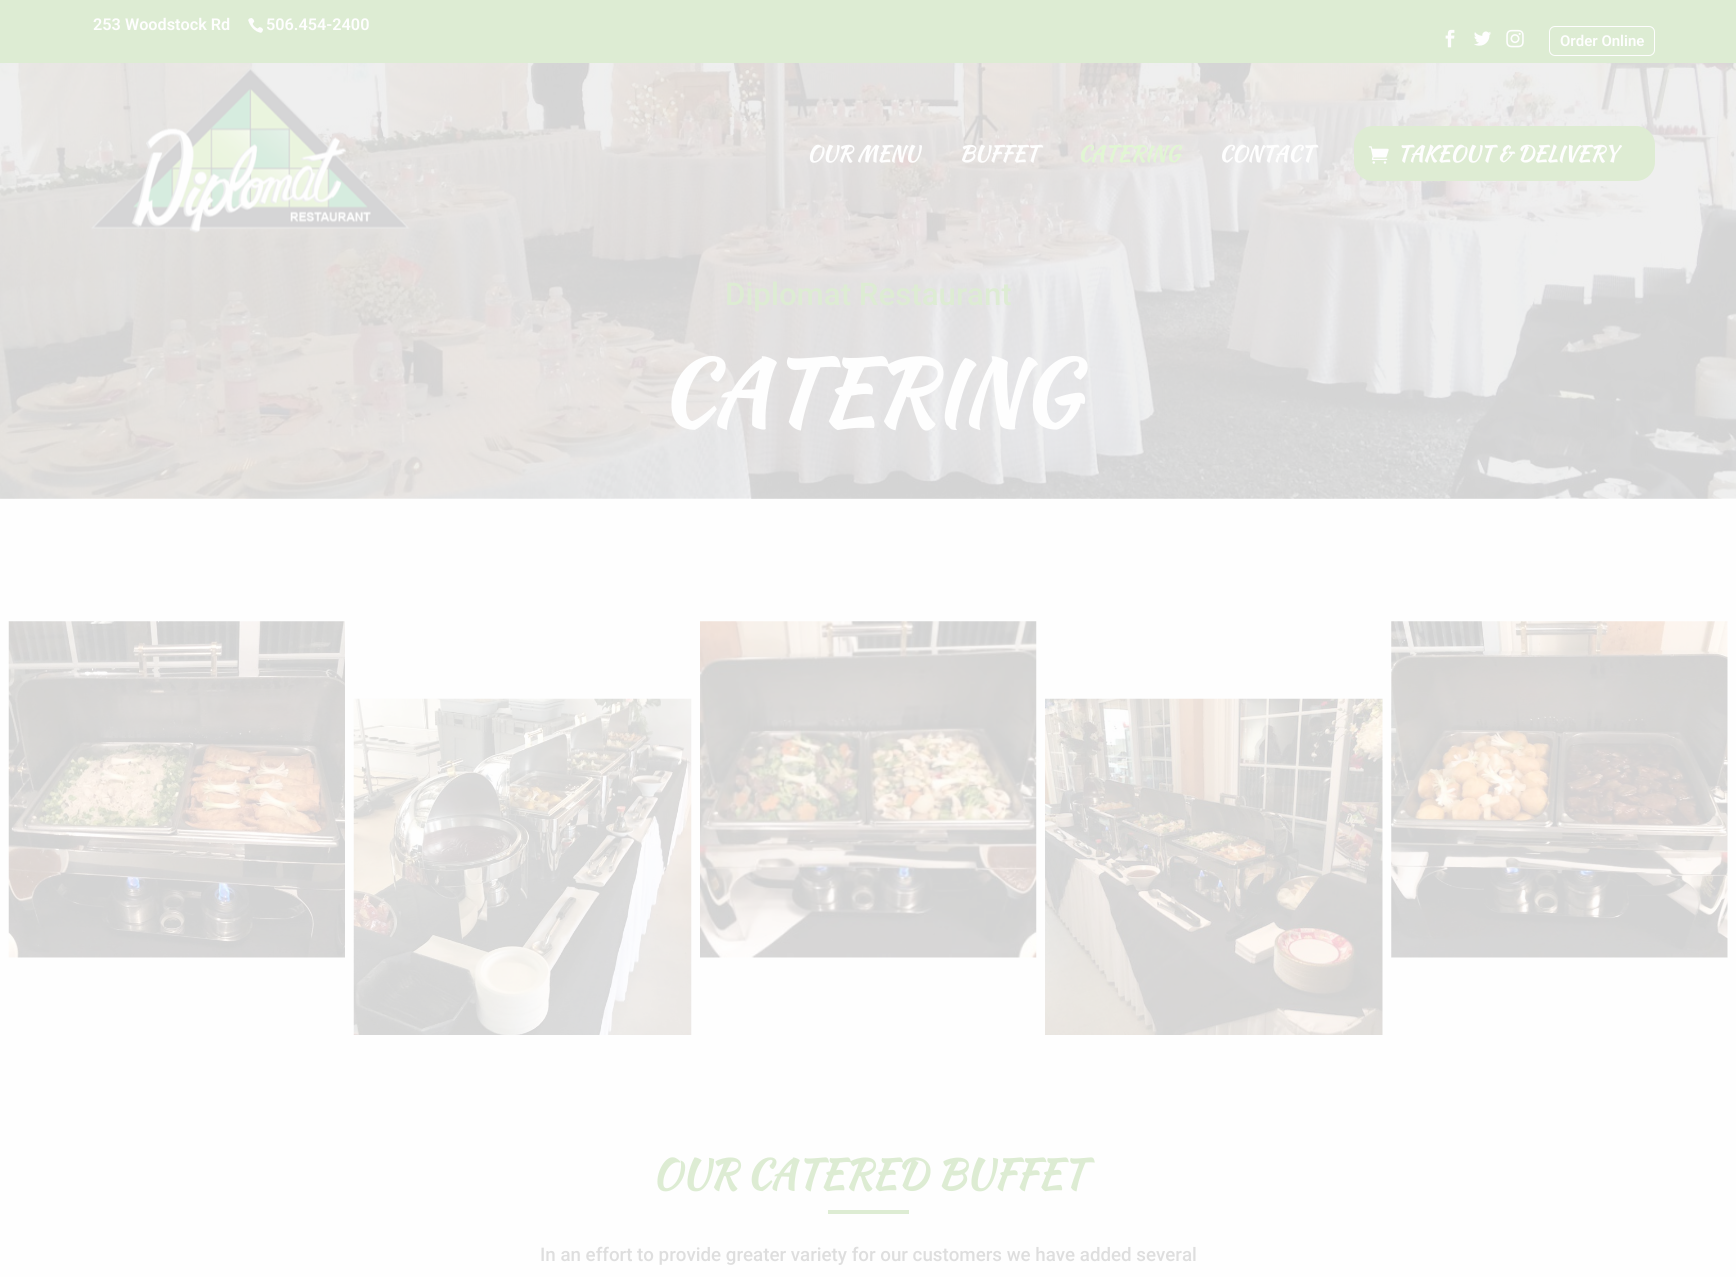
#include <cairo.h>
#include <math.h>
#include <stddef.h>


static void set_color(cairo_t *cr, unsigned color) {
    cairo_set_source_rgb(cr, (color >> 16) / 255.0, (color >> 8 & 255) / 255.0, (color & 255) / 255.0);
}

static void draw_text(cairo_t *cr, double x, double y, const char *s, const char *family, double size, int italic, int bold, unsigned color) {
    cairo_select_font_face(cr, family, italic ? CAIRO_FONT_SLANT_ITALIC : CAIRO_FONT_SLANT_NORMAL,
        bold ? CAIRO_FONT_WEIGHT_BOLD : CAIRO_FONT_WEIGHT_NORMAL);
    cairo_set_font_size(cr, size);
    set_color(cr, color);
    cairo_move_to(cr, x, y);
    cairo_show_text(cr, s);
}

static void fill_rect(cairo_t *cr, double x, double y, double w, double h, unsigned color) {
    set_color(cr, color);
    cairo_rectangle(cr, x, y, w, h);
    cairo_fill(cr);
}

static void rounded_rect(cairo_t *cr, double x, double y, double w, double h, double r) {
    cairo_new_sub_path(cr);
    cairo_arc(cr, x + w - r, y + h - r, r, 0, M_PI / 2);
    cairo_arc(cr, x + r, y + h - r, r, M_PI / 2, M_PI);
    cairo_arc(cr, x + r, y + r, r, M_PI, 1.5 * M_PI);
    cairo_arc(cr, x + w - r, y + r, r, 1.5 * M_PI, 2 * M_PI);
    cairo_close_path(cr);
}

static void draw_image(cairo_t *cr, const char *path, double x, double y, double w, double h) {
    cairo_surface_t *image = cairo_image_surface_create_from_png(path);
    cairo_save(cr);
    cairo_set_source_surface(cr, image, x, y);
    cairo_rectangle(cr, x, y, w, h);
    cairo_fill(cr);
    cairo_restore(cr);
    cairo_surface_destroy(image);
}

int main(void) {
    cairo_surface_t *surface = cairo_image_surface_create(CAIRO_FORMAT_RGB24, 1736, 1277);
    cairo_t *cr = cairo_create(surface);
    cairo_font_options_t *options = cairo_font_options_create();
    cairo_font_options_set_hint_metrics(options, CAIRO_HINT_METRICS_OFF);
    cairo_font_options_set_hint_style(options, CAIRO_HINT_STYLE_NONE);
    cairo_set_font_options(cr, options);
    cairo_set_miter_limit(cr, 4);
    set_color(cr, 0xFEFEFE);
    cairo_paint(cr);
    fill_rect(cr, 0, 0, 1736, 63, 0xDDECD3);
    draw_text(cr, 93, 30, "253 Woodstock Rd", "Roboto SemiBold", 16.25, 0, 0, 0xFEFEFE);
    draw_image(cr, "assets/img1.png", 248, 18, 16, 15);
    draw_text(cr, 266, 30, "506.454-2400", "Roboto SemiBold", 16.25, 0, 0, 0xFEFEFE);
    draw_image(cr, "assets/img2.png", 1445, 29, 10, 19);
    draw_image(cr, "assets/img3.png", 1474, 31, 18, 15);
    draw_image(cr, "assets/img4.png", 1506, 29, 18, 19);
    rounded_rect(cr, 1549.5, 26.5, 105, 29, 5.5);
    cairo_set_line_width(cr, 1);
    cairo_stroke(cr);
    draw_text(cr, 1560, 46, "Order Online", "Roboto SemiBold", 15, 0, 0, 0xFEFEFE);
    draw_image(cr, "assets/img7.png", 0, 63, 1736, 436);
    draw_image(cr, "assets/img5.png", 91, 67, 319, 166);
    draw_text(cr, 807, 161, "OUR MENU", "Kaushan Script", 21.25, 0, 1, 0xFEFEFE);
    draw_text(cr, 959, 161, "BUFFET", "Kaushan Script", 21.25, 0, 1, 0xFEFEFE);
    draw_text(cr, 1078, 161, "CATERING", "Kaushan Script", 21.25, 0, 1, 0xE1F6D3);
    draw_text(cr, 1219, 161, "CONTACT", "Kaushan Script", 21.25, 0, 1, 0xFEFEFE);
    set_color(cr, 0xDEECD3);
    rounded_rect(cr, 1354, 126, 301, 55, 19);
    cairo_fill(cr);
    draw_image(cr, "assets/img6.png", 1368, 146, 21, 18);
    draw_text(cr, 1397, 161, "TAKEOUT & DELIVERY", "Kaushan Script", 21.25, 0, 1, 0xFEFEFE);
    draw_text(cr, 725, 305, "Diplomat Restaurant", "Roboto Medium", 31.25, 0, 0, 0xDDECD3);
    draw_text(cr, 659, 423, "CATERING", "Kaushan Script", 87.5, 0, 1, 0xFEFEFE);
    draw_image(cr, "assets/img8.png", 8, 621, 337, 337);
    draw_image(cr, "assets/img9.png", 353, 698, 339, 337);
    draw_image(cr, "assets/img10.png", 700, 621, 337, 337);
    draw_image(cr, "assets/img11.png", 1045, 698, 338, 337);
    draw_image(cr, "assets/img12.png", 1391, 621, 337, 337);
    draw_text(cr, 652, 1188, "OUR CATERED BUFFET", "Kaushan Script", 40, 0, 1, 0xDDECD3);
    fill_rect(cr, 828, 1210, 81, 4, 0xDDECD3);
    draw_text(cr, 540, 1261, "In an effort to provide greater variety for our customers we have added several", "Roboto Medium", 18.75, 0, 0, 0xDEDEDE);
    cairo_surface_write_to_png(surface, "output.png");
    cairo_font_options_destroy(options);
    cairo_destroy(cr);
    cairo_surface_destroy(surface);
    return 0;
}
